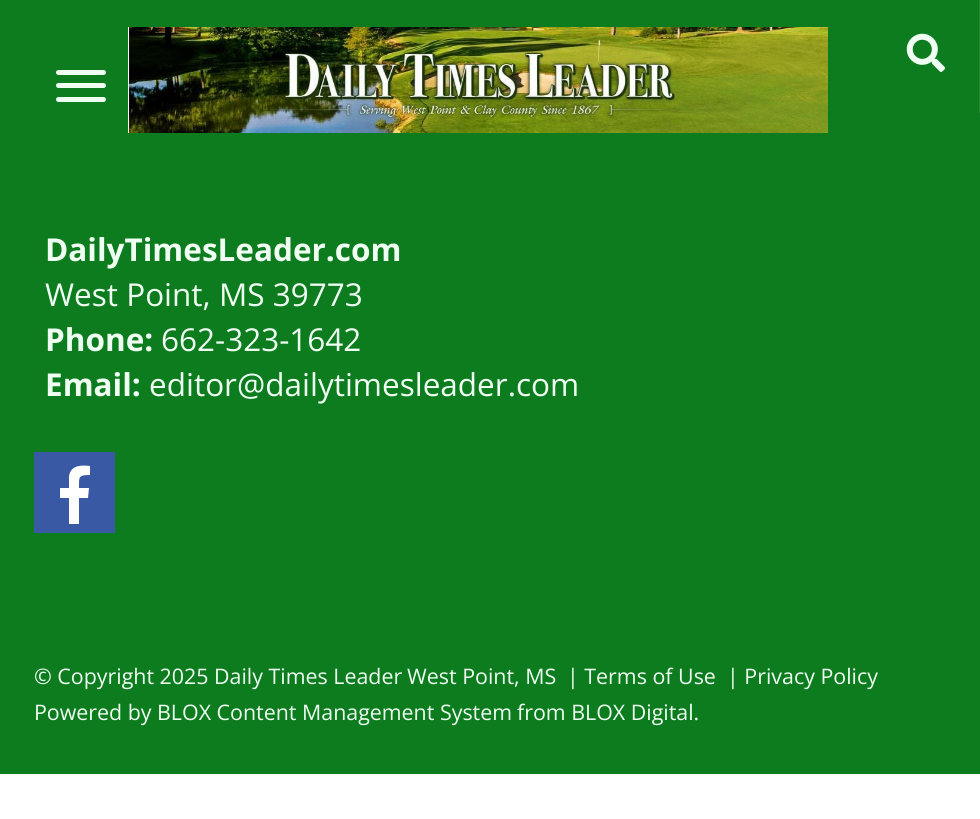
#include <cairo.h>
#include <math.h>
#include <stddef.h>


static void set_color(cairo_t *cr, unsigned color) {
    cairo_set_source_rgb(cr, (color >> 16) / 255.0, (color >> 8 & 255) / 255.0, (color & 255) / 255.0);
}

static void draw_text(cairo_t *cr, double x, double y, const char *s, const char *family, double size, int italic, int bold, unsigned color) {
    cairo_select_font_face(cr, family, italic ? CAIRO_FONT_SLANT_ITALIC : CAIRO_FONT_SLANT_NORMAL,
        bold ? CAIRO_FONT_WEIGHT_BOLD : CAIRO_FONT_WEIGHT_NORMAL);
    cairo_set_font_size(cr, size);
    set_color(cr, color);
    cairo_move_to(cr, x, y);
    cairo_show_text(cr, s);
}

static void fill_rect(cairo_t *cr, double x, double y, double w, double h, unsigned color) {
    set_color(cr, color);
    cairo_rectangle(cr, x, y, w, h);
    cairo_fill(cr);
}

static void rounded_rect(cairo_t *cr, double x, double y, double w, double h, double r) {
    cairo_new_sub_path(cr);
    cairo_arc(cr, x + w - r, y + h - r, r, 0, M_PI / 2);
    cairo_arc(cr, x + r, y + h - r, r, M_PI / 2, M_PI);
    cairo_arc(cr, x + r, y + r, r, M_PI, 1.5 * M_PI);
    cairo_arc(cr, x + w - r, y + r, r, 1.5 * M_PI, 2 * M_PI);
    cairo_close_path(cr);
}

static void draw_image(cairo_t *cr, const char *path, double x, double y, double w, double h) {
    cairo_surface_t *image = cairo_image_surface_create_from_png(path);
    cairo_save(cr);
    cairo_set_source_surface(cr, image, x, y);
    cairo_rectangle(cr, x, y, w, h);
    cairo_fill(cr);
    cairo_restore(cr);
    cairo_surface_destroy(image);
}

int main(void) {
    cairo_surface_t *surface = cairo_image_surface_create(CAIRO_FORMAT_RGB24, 980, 819);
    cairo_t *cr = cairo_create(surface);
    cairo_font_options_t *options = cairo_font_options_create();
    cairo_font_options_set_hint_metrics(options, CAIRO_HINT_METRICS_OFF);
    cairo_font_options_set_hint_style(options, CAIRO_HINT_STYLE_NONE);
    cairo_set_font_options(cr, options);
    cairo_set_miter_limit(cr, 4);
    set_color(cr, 0xFFFFFF);
    cairo_paint(cr);
    fill_rect(cr, 0, 0, 980, 774, 0x0C7C1F);
    set_color(cr, 0xEFFFF2);
    rounded_rect(cr, 56, 70, 50, 5, 2.5);
    cairo_fill(cr);
    rounded_rect(cr, 56, 83, 50, 5, 2.5);
    cairo_fill(cr);
    rounded_rect(cr, 56, 97, 50, 5, 2.5);
    cairo_fill(cr);
    draw_image(cr, "assets/img1.png", 128, 27, 700, 106);
    fill_rect(cr, 979, 0, 1, 113, 0x248935);
    draw_image(cr, "assets/img2.png", 906, 33, 39, 39);
    draw_text(cr, 45, 261, "DailyTimesLeader.com", "Open Sans", 31.5, 0, 1, 0xEFFFF2);
    draw_text(cr, 45, 306, "West Point, MS 39773", "Open Sans", 31.5, 0, 0, 0xEFFFF2);
    draw_text(cr, 45, 351, "Phone:", "Open Sans", 31.5, 0, 1, 0xEFFFF2);
    draw_text(cr, 161, 351, "662-323-1642", "Open Sans", 31.5, 0, 0, 0xEFFFF2);
    draw_text(cr, 45, 396, "Email:", "Open Sans", 31.5, 0, 1, 0xEFFFF2);
    draw_text(cr, 149, 396, "editor@dailytimesleader.com", "Open Sans", 31.5, 0, 0, 0xEFFFF2);
    fill_rect(cr, 34, 452, 81, 81, 0x3A59A5);
    set_color(cr, 0xFFFFFF);
    cairo_new_path(cr);
    cairo_move_to(cr, 69, 524);
    cairo_line_to(cr, 69, 498);
    cairo_line_to(cr, 60, 498);
    cairo_line_to(cr, 60, 488);
    cairo_line_to(cr, 69, 488);
    cairo_line_to(cr, 69, 476);
    cairo_curve_to(cr, 71, 465, 81, 465, 90, 466);
    cairo_line_to(cr, 90, 475);
    cairo_curve_to(cr, 78, 475, 79, 477, 79, 488);
    cairo_line_to(cr, 89, 488);
    cairo_line_to(cr, 88, 498);
    cairo_line_to(cr, 79, 498);
    cairo_line_to(cr, 79, 524);
    cairo_fill(cr);
    draw_text(cr, 34, 684, "© Copyright 2025", "Open Sans", 21.4, 0, 0, 0xEFFFF2);
    draw_text(cr, 214, 684, "Daily Times Leader", "Open Sans", 21.4, 0, 0, 0xEFFFF2);
    draw_text(cr, 407, 684, "West Point, MS", "Open Sans", 21.4, 0, 0, 0xEFFFF2);
    draw_text(cr, 567, 684, "| Terms of Use", "Open Sans", 21.4, 0, 0, 0xEFFFF2);
    draw_text(cr, 727, 684, "| Privacy Policy", "Open Sans", 21.4, 0, 0, 0xEFFFF2);
    draw_text(cr, 34, 720, "Powered by", "Open Sans", 21.4, 0, 0, 0xEFFFF2);
    draw_text(cr, 157, 720, "BLOX Content Management System", "Open Sans", 21.4, 0, 0, 0xEFFFF2);
    draw_text(cr, 517, 720, "from BLOX Digital.", "Open Sans", 21.4, 0, 0, 0xEFFFF2);
    cairo_surface_write_to_png(surface, "output.png");
    cairo_font_options_destroy(options);
    cairo_destroy(cr);
    cairo_surface_destroy(surface);
    return 0;
}
